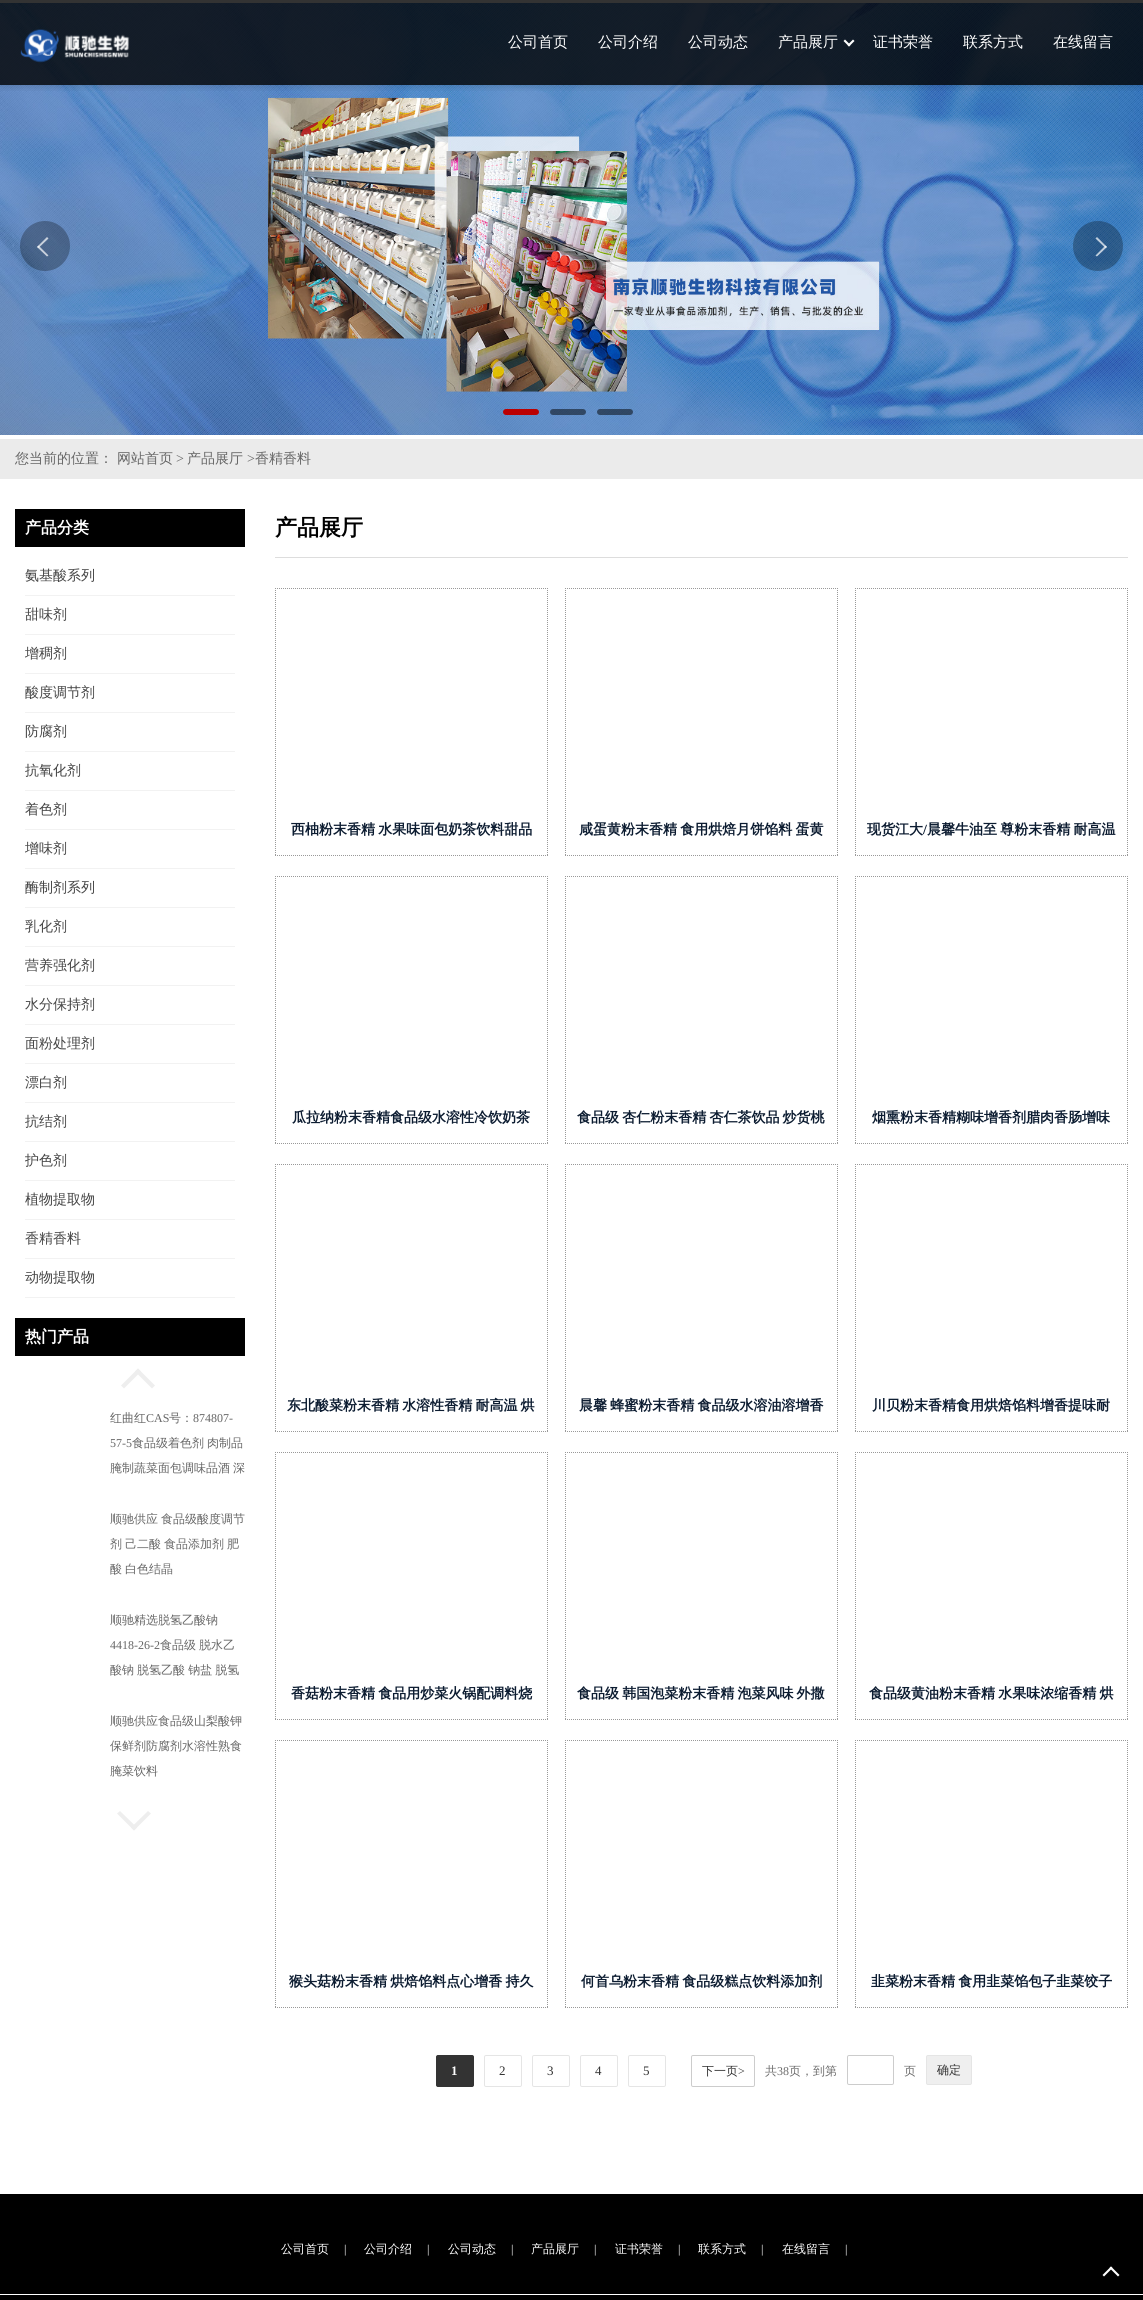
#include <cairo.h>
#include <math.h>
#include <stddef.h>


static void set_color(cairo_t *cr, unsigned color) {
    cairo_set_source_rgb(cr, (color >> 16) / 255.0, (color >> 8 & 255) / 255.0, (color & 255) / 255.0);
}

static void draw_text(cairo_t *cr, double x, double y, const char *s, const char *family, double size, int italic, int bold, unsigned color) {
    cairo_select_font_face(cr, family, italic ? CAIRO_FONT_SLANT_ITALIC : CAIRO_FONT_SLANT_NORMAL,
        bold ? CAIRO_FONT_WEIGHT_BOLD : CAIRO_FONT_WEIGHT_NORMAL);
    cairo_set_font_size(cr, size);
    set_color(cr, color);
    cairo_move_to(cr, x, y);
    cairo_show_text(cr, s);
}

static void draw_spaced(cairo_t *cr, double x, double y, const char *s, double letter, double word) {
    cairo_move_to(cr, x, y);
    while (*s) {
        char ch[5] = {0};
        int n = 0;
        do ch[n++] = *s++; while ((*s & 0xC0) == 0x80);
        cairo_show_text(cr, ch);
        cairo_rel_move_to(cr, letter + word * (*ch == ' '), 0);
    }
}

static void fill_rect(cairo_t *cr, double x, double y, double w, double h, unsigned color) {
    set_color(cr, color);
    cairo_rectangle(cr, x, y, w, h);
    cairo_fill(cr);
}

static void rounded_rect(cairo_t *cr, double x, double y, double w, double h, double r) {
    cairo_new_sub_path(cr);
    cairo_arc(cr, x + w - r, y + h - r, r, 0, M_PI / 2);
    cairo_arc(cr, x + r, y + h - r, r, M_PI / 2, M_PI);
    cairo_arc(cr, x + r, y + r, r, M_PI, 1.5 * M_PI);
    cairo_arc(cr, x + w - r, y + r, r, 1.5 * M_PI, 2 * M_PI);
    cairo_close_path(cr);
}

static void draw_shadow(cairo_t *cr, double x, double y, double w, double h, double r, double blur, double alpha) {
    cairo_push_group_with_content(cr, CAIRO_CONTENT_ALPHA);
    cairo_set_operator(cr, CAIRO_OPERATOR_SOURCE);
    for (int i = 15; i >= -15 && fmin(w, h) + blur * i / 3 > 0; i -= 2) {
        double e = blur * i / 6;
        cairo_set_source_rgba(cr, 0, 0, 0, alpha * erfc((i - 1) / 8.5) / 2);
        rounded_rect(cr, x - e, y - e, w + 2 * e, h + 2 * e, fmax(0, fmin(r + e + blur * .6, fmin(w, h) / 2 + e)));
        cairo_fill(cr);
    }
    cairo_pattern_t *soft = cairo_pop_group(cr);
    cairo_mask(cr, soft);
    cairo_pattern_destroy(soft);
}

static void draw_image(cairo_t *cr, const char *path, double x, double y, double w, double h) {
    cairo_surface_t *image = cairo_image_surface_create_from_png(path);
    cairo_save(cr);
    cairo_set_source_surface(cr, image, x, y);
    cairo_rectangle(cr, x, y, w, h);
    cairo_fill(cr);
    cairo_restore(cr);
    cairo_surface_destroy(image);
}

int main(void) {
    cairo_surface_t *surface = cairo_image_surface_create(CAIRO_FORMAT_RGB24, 1143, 2300);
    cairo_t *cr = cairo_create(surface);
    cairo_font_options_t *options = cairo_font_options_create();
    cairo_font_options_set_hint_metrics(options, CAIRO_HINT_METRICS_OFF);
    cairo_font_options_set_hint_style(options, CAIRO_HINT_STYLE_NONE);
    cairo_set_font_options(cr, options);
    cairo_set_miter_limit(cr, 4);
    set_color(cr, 0xFFFFFF);
    cairo_paint(cr);
    draw_image(cr, "assets/img1.png", 0, 3, 1143, 432);
    cairo_set_source_rgba(cr, 0, 0, 0, 0.28);
    cairo_arc(cr, 45, 246, 25, 0, 2 * M_PI);
    cairo_fill(cr);
    cairo_set_source_rgba(cr, 1, 1, 1, 0.7);
    cairo_new_path(cr);
    cairo_move_to(cr, 47, 256.5);
    cairo_line_to(cr, 37, 247);
    cairo_line_to(cr, 38.5, 245.5);
    cairo_line_to(cr, 48.5, 255.5);
    cairo_close_path(cr);
    cairo_fill(cr);
    cairo_new_path(cr);
    cairo_move_to(cr, 38.5, 248);
    cairo_line_to(cr, 37, 247);
    cairo_line_to(cr, 47, 237);
    cairo_line_to(cr, 48.5, 238.5);
    cairo_close_path(cr);
    cairo_fill(cr);
    cairo_set_source_rgba(cr, 0, 0, 0, 0.28);
    cairo_arc(cr, 1098, 246, 25, 0, 2 * M_PI);
    cairo_fill(cr);
    cairo_set_source_rgba(cr, 1, 1, 1, 0.7);
    cairo_new_path(cr);
    cairo_move_to(cr, 1097, 237);
    cairo_line_to(cr, 1107, 247);
    cairo_line_to(cr, 1105.5, 248);
    cairo_line_to(cr, 1095.5, 238.5);
    cairo_close_path(cr);
    cairo_fill(cr);
    cairo_new_path(cr);
    cairo_move_to(cr, 1105.5, 245.5);
    cairo_line_to(cr, 1107, 247);
    cairo_line_to(cr, 1097, 256.5);
    cairo_line_to(cr, 1095.5, 255.5);
    cairo_close_path(cr);
    cairo_fill(cr);
    set_color(cr, 0xBB0001);
    rounded_rect(cr, 503, 409, 36, 6, 3);
    cairo_fill(cr);
    cairo_set_source_rgba(cr, 0, 0, 0, 0.5);
    rounded_rect(cr, 550, 409, 36, 6, 3);
    cairo_fill(cr);
    rounded_rect(cr, 597, 409, 36, 6, 3);
    cairo_fill(cr);
    cairo_save(cr);
    cairo_rectangle(cr, 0, 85, 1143, 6);
    cairo_clip(cr);
    set_color(cr, 0x000000);
    draw_shadow(cr, 0, 0, 1143, 85, 0, 5, 0.2);
    cairo_restore(cr);
    cairo_set_source_rgba(cr, 0, 0, 0, 0.8);
    cairo_rectangle(cr, 0, 0, 1143, 85);
    cairo_fill(cr);
    draw_image(cr, "assets/img2.png", 20, 29, 110, 34);
    draw_text(cr, 508, 47, "公司首页", "WenQuanYi Zen Hei Medium", 15, 0, 0, 0xFFFFFF);
    draw_text(cr, 598, 47, "公司介绍", "WenQuanYi Zen Hei Medium", 15, 0, 0, 0xFFFFFF);
    draw_text(cr, 688, 47, "公司动态", "WenQuanYi Zen Hei Medium", 15, 0, 0, 0xFFFFFF);
    draw_text(cr, 778, 47, "产品展厅", "WenQuanYi Zen Hei Medium", 15, 0, 0, 0xFFFFFF);
    cairo_new_path(cr);
    cairo_move_to(cr, 854.5, 41);
    cairo_line_to(cr, 849, 46.5);
    cairo_line_to(cr, 847.5, 45);
    cairo_line_to(cr, 853, 39.5);
    cairo_close_path(cr);
    cairo_fill(cr);
    cairo_new_path(cr);
    cairo_move_to(cr, 850.5, 45);
    cairo_line_to(cr, 849, 46.5);
    cairo_line_to(cr, 843.5, 41);
    cairo_line_to(cr, 845, 39.5);
    cairo_close_path(cr);
    cairo_fill(cr);
    draw_text(cr, 873, 47, "证书荣誉", "WenQuanYi Zen Hei Medium", 15, 0, 0, 0xFFFFFF);
    draw_text(cr, 963, 47, "联系方式", "WenQuanYi Zen Hei Medium", 15, 0, 0, 0xFFFFFF);
    draw_text(cr, 1053, 47, "在线留言", "WenQuanYi Zen Hei Medium", 15, 0, 0, 0xFFFFFF);
    fill_rect(cr, 0, 439, 1143, 40, 0xEBEBEB);
    draw_text(cr, 15, 463, "您当前的位置：", "WenQuanYi Zen Hei Medium", 14, 0, 0, 0x666666);
    draw_text(cr, 117, 463, "网站首页", "WenQuanYi Zen Hei Medium", 14, 0, 0, 0x666666);
    draw_text(cr, 176, 463, ">", "Liberation Serif", 14, 0, 0, 0x666666);
    draw_text(cr, 187, 463, "产品展厅", "WenQuanYi Zen Hei Medium", 14, 0, 0, 0x666666);
    draw_text(cr, 247, 463, ">", "Liberation Serif", 14, 0, 0, 0x666666);
    draw_text(cr, 255, 463, "香精香料", "WenQuanYi Zen Hei Medium", 14, 0, 0, 0x666666);
    fill_rect(cr, 15, 509, 230, 38, 0x000000);
    draw_text(cr, 25, 533, "产品分类", "WenQuanYi Zen Hei", 16, 0, 1, 0xFFFFFF);
    fill_rect(cr, 25, 595, 210, 1, 0xF2F2F2);
    draw_text(cr, 25, 580, "氨基酸系列", "WenQuanYi Zen Hei Medium", 14, 0, 0, 0x444444);
    fill_rect(cr, 25, 634, 210, 1, 0xF2F2F2);
    draw_text(cr, 25, 619, "甜味剂", "WenQuanYi Zen Hei Medium", 14, 0, 0, 0x444444);
    fill_rect(cr, 25, 673, 210, 1, 0xF2F2F2);
    draw_text(cr, 25, 658, "增稠剂", "WenQuanYi Zen Hei Medium", 14, 0, 0, 0x444444);
    fill_rect(cr, 25, 712, 210, 1, 0xF2F2F2);
    draw_text(cr, 25, 697, "酸度调节剂", "WenQuanYi Zen Hei Medium", 14, 0, 0, 0x444444);
    fill_rect(cr, 25, 751, 210, 1, 0xF2F2F2);
    draw_text(cr, 25, 736, "防腐剂", "WenQuanYi Zen Hei Medium", 14, 0, 0, 0x444444);
    fill_rect(cr, 25, 790, 210, 1, 0xF2F2F2);
    draw_text(cr, 25, 775, "抗氧化剂", "WenQuanYi Zen Hei Medium", 14, 0, 0, 0x444444);
    fill_rect(cr, 25, 829, 210, 1, 0xF2F2F2);
    draw_text(cr, 25, 814, "着色剂", "WenQuanYi Zen Hei Medium", 14, 0, 0, 0x444444);
    fill_rect(cr, 25, 868, 210, 1, 0xF2F2F2);
    draw_text(cr, 25, 853, "增味剂", "WenQuanYi Zen Hei Medium", 14, 0, 0, 0x444444);
    fill_rect(cr, 25, 907, 210, 1, 0xF2F2F2);
    draw_text(cr, 25, 892, "酶制剂系列", "WenQuanYi Zen Hei Medium", 14, 0, 0, 0x444444);
    fill_rect(cr, 25, 946, 210, 1, 0xF2F2F2);
    draw_text(cr, 25, 931, "乳化剂", "WenQuanYi Zen Hei Medium", 14, 0, 0, 0x444444);
    fill_rect(cr, 25, 985, 210, 1, 0xF2F2F2);
    draw_text(cr, 25, 970, "营养强化剂", "WenQuanYi Zen Hei Medium", 14, 0, 0, 0x444444);
    fill_rect(cr, 25, 1024, 210, 1, 0xF2F2F2);
    draw_text(cr, 25, 1009, "水分保持剂", "WenQuanYi Zen Hei Medium", 14, 0, 0, 0x444444);
    fill_rect(cr, 25, 1063, 210, 1, 0xF2F2F2);
    draw_text(cr, 25, 1048, "面粉处理剂", "WenQuanYi Zen Hei Medium", 14, 0, 0, 0x444444);
    fill_rect(cr, 25, 1102, 210, 1, 0xF2F2F2);
    draw_text(cr, 25, 1087, "漂白剂", "WenQuanYi Zen Hei Medium", 14, 0, 0, 0x444444);
    fill_rect(cr, 25, 1141, 210, 1, 0xF2F2F2);
    draw_text(cr, 25, 1126, "抗结剂", "WenQuanYi Zen Hei Medium", 14, 0, 0, 0x444444);
    fill_rect(cr, 25, 1180, 210, 1, 0xF2F2F2);
    draw_text(cr, 25, 1165, "护色剂", "WenQuanYi Zen Hei Medium", 14, 0, 0, 0x444444);
    fill_rect(cr, 25, 1219, 210, 1, 0xF2F2F2);
    draw_text(cr, 25, 1204, "植物提取物", "WenQuanYi Zen Hei Medium", 14, 0, 0, 0x444444);
    fill_rect(cr, 25, 1258, 210, 1, 0xF2F2F2);
    draw_text(cr, 25, 1243, "香精香料", "WenQuanYi Zen Hei Medium", 14, 0, 0, 0x444444);
    fill_rect(cr, 25, 1297, 210, 1, 0xF2F2F2);
    draw_text(cr, 25, 1282, "动物提取物", "WenQuanYi Zen Hei Medium", 14, 0, 0, 0x444444);
    fill_rect(cr, 15, 1318, 230, 38, 0x000000);
    draw_text(cr, 25, 1342, "热门产品", "WenQuanYi Zen Hei", 16, 0, 1, 0xFFFFFF);
    set_color(cr, 0xEEEEEE);
    cairo_new_path(cr);
    cairo_move_to(cr, 121, 1385.5);
    cairo_line_to(cr, 138, 1368.5);
    cairo_line_to(cr, 141, 1371.5);
    cairo_line_to(cr, 124, 1388.5);
    cairo_close_path(cr);
    cairo_fill(cr);
    cairo_new_path(cr);
    cairo_move_to(cr, 135, 1371.5);
    cairo_line_to(cr, 138, 1368.5);
    cairo_line_to(cr, 155, 1385.5);
    cairo_line_to(cr, 152, 1388.5);
    cairo_close_path(cr);
    cairo_fill(cr);
    draw_text(cr, 110, 1422, "红曲红", "WenQuanYi Zen Hei Medium", 12, 0, 0, 0x666666);
    draw_text(cr, 146, 1422, "CAS", "Liberation Serif", 12, 0, 0, 0x666666);
    draw_text(cr, 169, 1422, "号：", "WenQuanYi Zen Hei Medium", 12, 0, 0, 0x666666);
    draw_text(cr, 193, 1422, "874807-", "Liberation Serif", 12, 0, 0, 0x666666);
    draw_text(cr, 110, 1447, "57-5", "Liberation Serif", 12, 0, 0, 0x666666);
    cairo_select_font_face(cr, "WenQuanYi Zen Hei Medium", CAIRO_FONT_SLANT_NORMAL, CAIRO_FONT_WEIGHT_NORMAL);
    draw_spaced(cr, 132, 1447, "食品级着色剂 肉制品", 0, -0.5);
    draw_spaced(cr, 110, 1472, "腌制蔬菜面包调味品酒 深", 0, -0.5);
    draw_spaced(cr, 110, 1523, "顺驰供应 食品级酸度调节", 0, -0.5);
    draw_spaced(cr, 110, 1548, "剂 己二酸", 0, -0.5);
    draw_spaced(cr, 164, 1548, "食品添加剂 肥", 0, -0.5);
    draw_spaced(cr, 110, 1573, "酸 白色结晶", 0, -0.5);
    draw_text(cr, 110, 1624, "顺驰精选脱氢乙酸钠", "WenQuanYi Zen Hei Medium", 12, 0, 0, 0x666666);
    draw_text(cr, 110, 1649, "4418-26-2", "Liberation Serif", 12, 0, 0, 0x666666);
    cairo_select_font_face(cr, "WenQuanYi Zen Hei Medium", CAIRO_FONT_SLANT_NORMAL, CAIRO_FONT_WEIGHT_NORMAL);
    draw_spaced(cr, 160, 1649, "食品级 脱水乙", 0, -0.5);
    draw_spaced(cr, 110, 1674, "酸钠 脱氢乙酸 钠盐 脱氢", 0, -0.5);
    draw_text(cr, 110, 1725, "顺驰供应食品级山梨酸钾", "WenQuanYi Zen Hei Medium", 12, 0, 0, 0x666666);
    draw_text(cr, 110, 1750, "保鲜剂防腐剂水溶性熟食", "WenQuanYi Zen Hei Medium", 12, 0, 0, 0x666666);
    draw_text(cr, 110, 1775, "腌菜饮料", "WenQuanYi Zen Hei Medium", 12, 0, 0, 0x666666);
    set_color(cr, 0xEEEEEE);
    cairo_new_path(cr);
    cairo_move_to(cr, 151, 1813.5);
    cairo_line_to(cr, 134, 1830.5);
    cairo_line_to(cr, 131, 1827.5);
    cairo_line_to(cr, 148, 1811);
    cairo_close_path(cr);
    cairo_fill(cr);
    cairo_new_path(cr);
    cairo_move_to(cr, 137, 1827.5);
    cairo_line_to(cr, 134, 1830.5);
    cairo_line_to(cr, 117, 1813.5);
    cairo_line_to(cr, 120, 1811);
    cairo_close_path(cr);
    cairo_fill(cr);
    fill_rect(cr, 275, 557, 853, 1, 0xDDDDDD);
    draw_text(cr, 275, 535, "产品展厅", "WenQuanYi Zen Hei", 22, 0, 1, 0x000000);
    cairo_new_path(cr);
    cairo_move_to(cr, 275, 588.5);
    cairo_line_to(cr, 548, 588.5);
    set_color(cr, 0x999999);
    cairo_set_line_width(cr, 1);
    cairo_set_dash(cr, (double[]){1, 1}, 2, 0);
    cairo_stroke(cr);
    cairo_new_path(cr);
    cairo_move_to(cr, 547.5, 588);
    cairo_line_to(cr, 547.5, 856);
    cairo_stroke(cr);
    cairo_new_path(cr);
    cairo_move_to(cr, 275, 855.5);
    cairo_line_to(cr, 548, 855.5);
    cairo_stroke(cr);
    cairo_new_path(cr);
    cairo_move_to(cr, 275.5, 588);
    cairo_line_to(cr, 275.5, 856);
    cairo_stroke(cr);
    cairo_set_font_size(cr, 14);
    set_color(cr, 0x0C1C31);
    draw_spaced(cr, 291, 834, "西柚粉末香精 水果味面包奶茶饮料甜品", 0, -1);
    cairo_new_path(cr);
    cairo_move_to(cr, 565, 588.5);
    cairo_line_to(cr, 838, 588.5);
    set_color(cr, 0x999999);
    cairo_stroke(cr);
    cairo_new_path(cr);
    cairo_move_to(cr, 837.5, 588);
    cairo_line_to(cr, 837.5, 856);
    cairo_stroke(cr);
    cairo_new_path(cr);
    cairo_move_to(cr, 565, 855.5);
    cairo_line_to(cr, 838, 855.5);
    cairo_stroke(cr);
    cairo_new_path(cr);
    cairo_move_to(cr, 565.5, 588);
    cairo_line_to(cr, 565.5, 856);
    cairo_stroke(cr);
    set_color(cr, 0x0C1C31);
    draw_spaced(cr, 579, 834, "咸蛋黄粉末香精 食用烘焙月饼馅料 蛋黄", 0, -1);
    cairo_new_path(cr);
    cairo_move_to(cr, 855, 588.5);
    cairo_line_to(cr, 1128, 588.5);
    set_color(cr, 0x999999);
    cairo_stroke(cr);
    cairo_new_path(cr);
    cairo_move_to(cr, 1127.5, 588);
    cairo_line_to(cr, 1127.5, 856);
    cairo_stroke(cr);
    cairo_new_path(cr);
    cairo_move_to(cr, 855, 855.5);
    cairo_line_to(cr, 1128, 855.5);
    cairo_stroke(cr);
    cairo_new_path(cr);
    cairo_move_to(cr, 855.5, 588);
    cairo_line_to(cr, 855.5, 856);
    cairo_stroke(cr);
    draw_text(cr, 867, 834, "现货江大", "WenQuanYi Zen Hei", 14, 0, 1, 0x0C1C31);
    draw_text(cr, 923, 834, "/", "Liberation Serif", 14, 0, 1, 0x0C1C31);
    cairo_select_font_face(cr, "WenQuanYi Zen Hei", CAIRO_FONT_SLANT_NORMAL, CAIRO_FONT_WEIGHT_BOLD);
    draw_spaced(cr, 927, 834, "晨馨牛油至 尊粉末香精 耐高温", 0, -1);
    cairo_new_path(cr);
    cairo_move_to(cr, 275, 876.5);
    cairo_line_to(cr, 548, 876.5);
    set_color(cr, 0x999999);
    cairo_stroke(cr);
    cairo_new_path(cr);
    cairo_move_to(cr, 547.5, 876);
    cairo_line_to(cr, 547.5, 1144);
    cairo_stroke(cr);
    cairo_new_path(cr);
    cairo_move_to(cr, 275, 1143.5);
    cairo_line_to(cr, 548, 1143.5);
    cairo_stroke(cr);
    cairo_new_path(cr);
    cairo_move_to(cr, 275.5, 876);
    cairo_line_to(cr, 275.5, 1144);
    cairo_stroke(cr);
    draw_text(cr, 292, 1122, "瓜拉纳粉末香精食品级水溶性冷饮奶茶", "WenQuanYi Zen Hei", 14, 0, 1, 0x0C1C31);
    cairo_new_path(cr);
    cairo_move_to(cr, 565, 876.5);
    cairo_line_to(cr, 838, 876.5);
    set_color(cr, 0x999999);
    cairo_stroke(cr);
    cairo_new_path(cr);
    cairo_move_to(cr, 837.5, 876);
    cairo_line_to(cr, 837.5, 1144);
    cairo_stroke(cr);
    cairo_new_path(cr);
    cairo_move_to(cr, 565, 1143.5);
    cairo_line_to(cr, 838, 1143.5);
    cairo_stroke(cr);
    cairo_new_path(cr);
    cairo_move_to(cr, 565.5, 876);
    cairo_line_to(cr, 565.5, 1144);
    cairo_stroke(cr);
    set_color(cr, 0x0C1C31);
    draw_spaced(cr, 577, 1122, "食品级 杏仁粉末香精 杏仁茶饮品 炒货桃", 0, -1);
    cairo_new_path(cr);
    cairo_move_to(cr, 855, 876.5);
    cairo_line_to(cr, 1128, 876.5);
    set_color(cr, 0x999999);
    cairo_stroke(cr);
    cairo_new_path(cr);
    cairo_move_to(cr, 1127.5, 876);
    cairo_line_to(cr, 1127.5, 1144);
    cairo_stroke(cr);
    cairo_new_path(cr);
    cairo_move_to(cr, 855, 1143.5);
    cairo_line_to(cr, 1128, 1143.5);
    cairo_stroke(cr);
    cairo_new_path(cr);
    cairo_move_to(cr, 855.5, 876);
    cairo_line_to(cr, 855.5, 1144);
    cairo_stroke(cr);
    draw_text(cr, 872, 1122, "烟熏粉末香精糊味增香剂腊肉香肠增味", "WenQuanYi Zen Hei", 14, 0, 1, 0x0C1C31);
    cairo_new_path(cr);
    cairo_move_to(cr, 275, 1164.5);
    cairo_line_to(cr, 548, 1164.5);
    set_color(cr, 0x999999);
    cairo_stroke(cr);
    cairo_new_path(cr);
    cairo_move_to(cr, 547.5, 1164);
    cairo_line_to(cr, 547.5, 1432);
    cairo_stroke(cr);
    cairo_new_path(cr);
    cairo_move_to(cr, 275, 1431.5);
    cairo_line_to(cr, 548, 1431.5);
    cairo_stroke(cr);
    cairo_new_path(cr);
    cairo_move_to(cr, 275.5, 1164);
    cairo_line_to(cr, 275.5, 1432);
    cairo_stroke(cr);
    set_color(cr, 0x0C1C31);
    draw_spaced(cr, 287, 1410, "东北酸菜粉末香精 水溶性香精 耐高温 烘", 0, -1);
    cairo_new_path(cr);
    cairo_move_to(cr, 565, 1164.5);
    cairo_line_to(cr, 838, 1164.5);
    set_color(cr, 0x999999);
    cairo_stroke(cr);
    cairo_new_path(cr);
    cairo_move_to(cr, 837.5, 1164);
    cairo_line_to(cr, 837.5, 1432);
    cairo_stroke(cr);
    cairo_new_path(cr);
    cairo_move_to(cr, 565, 1431.5);
    cairo_line_to(cr, 838, 1431.5);
    cairo_stroke(cr);
    cairo_new_path(cr);
    cairo_move_to(cr, 565.5, 1164);
    cairo_line_to(cr, 565.5, 1432);
    cairo_stroke(cr);
    set_color(cr, 0x0C1C31);
    draw_spaced(cr, 579, 1410, "晨馨 蜂蜜粉末香精 食品级水溶油溶增香", 0, -1);
    cairo_new_path(cr);
    cairo_move_to(cr, 855, 1164.5);
    cairo_line_to(cr, 1128, 1164.5);
    set_color(cr, 0x999999);
    cairo_stroke(cr);
    cairo_new_path(cr);
    cairo_move_to(cr, 1127.5, 1164);
    cairo_line_to(cr, 1127.5, 1432);
    cairo_stroke(cr);
    cairo_new_path(cr);
    cairo_move_to(cr, 855, 1431.5);
    cairo_line_to(cr, 1128, 1431.5);
    cairo_stroke(cr);
    cairo_new_path(cr);
    cairo_move_to(cr, 855.5, 1164);
    cairo_line_to(cr, 855.5, 1432);
    cairo_stroke(cr);
    draw_text(cr, 872, 1410, "川贝粉末香精食用烘焙馅料增香提味耐", "WenQuanYi Zen Hei", 14, 0, 1, 0x0C1C31);
    cairo_new_path(cr);
    cairo_move_to(cr, 275, 1452.5);
    cairo_line_to(cr, 548, 1452.5);
    set_color(cr, 0x999999);
    cairo_stroke(cr);
    cairo_new_path(cr);
    cairo_move_to(cr, 547.5, 1452);
    cairo_line_to(cr, 547.5, 1720);
    cairo_stroke(cr);
    cairo_new_path(cr);
    cairo_move_to(cr, 275, 1719.5);
    cairo_line_to(cr, 548, 1719.5);
    cairo_stroke(cr);
    cairo_new_path(cr);
    cairo_move_to(cr, 275.5, 1452);
    cairo_line_to(cr, 275.5, 1720);
    cairo_stroke(cr);
    set_color(cr, 0x0C1C31);
    draw_spaced(cr, 291, 1698, "香菇粉末香精 食品用炒菜火锅配调料烧", 0, -1);
    cairo_new_path(cr);
    cairo_move_to(cr, 565, 1452.5);
    cairo_line_to(cr, 838, 1452.5);
    set_color(cr, 0x999999);
    cairo_stroke(cr);
    cairo_new_path(cr);
    cairo_move_to(cr, 837.5, 1452);
    cairo_line_to(cr, 837.5, 1720);
    cairo_stroke(cr);
    cairo_new_path(cr);
    cairo_move_to(cr, 565, 1719.5);
    cairo_line_to(cr, 838, 1719.5);
    cairo_stroke(cr);
    cairo_new_path(cr);
    cairo_move_to(cr, 565.5, 1452);
    cairo_line_to(cr, 565.5, 1720);
    cairo_stroke(cr);
    set_color(cr, 0x0C1C31);
    draw_spaced(cr, 577, 1698, "食品级 韩国泡菜粉末香精 泡菜风味 外撒", 0, -1);
    cairo_new_path(cr);
    cairo_move_to(cr, 855, 1452.5);
    cairo_line_to(cr, 1128, 1452.5);
    set_color(cr, 0x999999);
    cairo_stroke(cr);
    cairo_new_path(cr);
    cairo_move_to(cr, 1127.5, 1452);
    cairo_line_to(cr, 1127.5, 1720);
    cairo_stroke(cr);
    cairo_new_path(cr);
    cairo_move_to(cr, 855, 1719.5);
    cairo_line_to(cr, 1128, 1719.5);
    cairo_stroke(cr);
    cairo_new_path(cr);
    cairo_move_to(cr, 855.5, 1452);
    cairo_line_to(cr, 855.5, 1720);
    cairo_stroke(cr);
    set_color(cr, 0x0C1C31);
    draw_spaced(cr, 869, 1698, "食品级黄油粉末香精 水果味浓缩香精 烘", 0, -1);
    cairo_new_path(cr);
    cairo_move_to(cr, 275, 1740.5);
    cairo_line_to(cr, 548, 1740.5);
    set_color(cr, 0x999999);
    cairo_stroke(cr);
    cairo_new_path(cr);
    cairo_move_to(cr, 547.5, 1740);
    cairo_line_to(cr, 547.5, 2008);
    cairo_stroke(cr);
    cairo_new_path(cr);
    cairo_move_to(cr, 275, 2007.5);
    cairo_line_to(cr, 548, 2007.5);
    cairo_stroke(cr);
    cairo_new_path(cr);
    cairo_move_to(cr, 275.5, 1740);
    cairo_line_to(cr, 275.5, 2008);
    cairo_stroke(cr);
    set_color(cr, 0x0C1C31);
    draw_spaced(cr, 289, 1986, "猴头菇粉末香精 烘焙馅料点心增香 持久", 0, -1);
    cairo_new_path(cr);
    cairo_move_to(cr, 565, 1740.5);
    cairo_line_to(cr, 838, 1740.5);
    set_color(cr, 0x999999);
    cairo_stroke(cr);
    cairo_new_path(cr);
    cairo_move_to(cr, 837.5, 1740);
    cairo_line_to(cr, 837.5, 2008);
    cairo_stroke(cr);
    cairo_new_path(cr);
    cairo_move_to(cr, 565, 2007.5);
    cairo_line_to(cr, 838, 2007.5);
    cairo_stroke(cr);
    cairo_new_path(cr);
    cairo_move_to(cr, 565.5, 1740);
    cairo_line_to(cr, 565.5, 2008);
    cairo_stroke(cr);
    set_color(cr, 0x0C1C31);
    draw_spaced(cr, 581, 1986, "何首乌粉末香精 食品级糕点饮料添加剂", 0, -1);
    cairo_new_path(cr);
    cairo_move_to(cr, 855, 1740.5);
    cairo_line_to(cr, 1128, 1740.5);
    set_color(cr, 0x999999);
    cairo_stroke(cr);
    cairo_new_path(cr);
    cairo_move_to(cr, 1127.5, 1740);
    cairo_line_to(cr, 1127.5, 2008);
    cairo_stroke(cr);
    cairo_new_path(cr);
    cairo_move_to(cr, 855, 2007.5);
    cairo_line_to(cr, 1128, 2007.5);
    cairo_stroke(cr);
    cairo_new_path(cr);
    cairo_move_to(cr, 855.5, 1740);
    cairo_line_to(cr, 855.5, 2008);
    cairo_stroke(cr);
    set_color(cr, 0x0C1C31);
    draw_spaced(cr, 871, 1986, "韭菜粉末香精 食用韭菜馅包子韭菜饺子", 0, -1);
    set_color(cr, 0x333333);
    rounded_rect(cr, 436.5, 2055.5, 37, 31, 1.5);
    cairo_fill_preserve(cr);
    cairo_set_dash(cr, NULL, 0, 0);
    cairo_stroke(cr);
    draw_text(cr, 451, 2075, "1", "Liberation Serif", 13, 0, 1, 0xFFFFFF);
    rounded_rect(cr, 484.5, 2055.5, 37, 31, 1.5);
    set_color(cr, 0xE5E5E5);
    cairo_stroke(cr);
    draw_text(cr, 499, 2075, "2", "Liberation Serif", 13, 0, 0, 0x333333);
    rounded_rect(cr, 532.5, 2055.5, 37, 31, 1.5);
    set_color(cr, 0xE5E5E5);
    cairo_stroke(cr);
    draw_text(cr, 547, 2075, "3", "Liberation Serif", 13, 0, 0, 0x333333);
    rounded_rect(cr, 580.5, 2055.5, 37, 31, 1.5);
    set_color(cr, 0xE5E5E5);
    cairo_stroke(cr);
    draw_text(cr, 595, 2075, "4", "Liberation Serif", 13, 0, 0, 0x333333);
    rounded_rect(cr, 628.5, 2055.5, 37, 31, 1.5);
    set_color(cr, 0xE5E5E5);
    cairo_stroke(cr);
    draw_text(cr, 643, 2075, "5", "Liberation Serif", 13, 0, 0, 0x333333);
    rounded_rect(cr, 691.5, 2055.5, 63, 31, 1.5);
    set_color(cr, 0xCCCCCC);
    cairo_stroke(cr);
    draw_text(cr, 702, 2075, "下一页", "WenQuanYi Zen Hei Medium", 12, 0, 0, 0x333333);
    draw_text(cr, 738, 2075, ">", "Liberation Serif", 12, 0, 0, 0x333333);
    draw_text(cr, 765, 2075, "共", "WenQuanYi Zen Hei Medium", 12, 0, 0, 0x6D6D6D);
    draw_text(cr, 777, 2075, "38", "Liberation Serif", 12, 0, 0, 0x6D6D6D);
    draw_text(cr, 789, 2075, "页，到第", "WenQuanYi Zen Hei Medium", 12, 0, 0, 0x6D6D6D);
    rounded_rect(cr, 847.5, 2055.5, 46, 29, 1.5);
    set_color(cr, 0xCCCCCC);
    cairo_stroke(cr);
    draw_text(cr, 904, 2075, "页", "WenQuanYi Zen Hei Medium", 12, 0, 0, 0x6D6D6D);
    set_color(cr, 0xEFEFEF);
    rounded_rect(cr, 926.5, 2055.5, 45, 29, 1.5);
    cairo_fill_preserve(cr);
    set_color(cr, 0xE5E5E5);
    cairo_stroke(cr);
    draw_text(cr, 937, 2074, "确定", "WenQuanYi Zen Hei Medium", 12, 0, 0, 0x333333);
    fill_rect(cr, 0, 2194, 1143, 106, 0x000000);
    draw_text(cr, 281, 2253, "公司首页", "WenQuanYi Zen Hei Medium", 12, 0, 0, 0xFFFFFF);
    draw_text(cr, 344, 2253, "|", "Liberation Serif", 12, 0, 0, 0xFFFFFF);
    draw_text(cr, 364, 2253, "公司介绍", "WenQuanYi Zen Hei Medium", 12, 0, 0, 0xFFFFFF);
    draw_text(cr, 427, 2253, "|", "Liberation Serif", 12, 0, 0, 0xFFFFFF);
    draw_text(cr, 448, 2253, "公司动态", "WenQuanYi Zen Hei Medium", 12, 0, 0, 0xFFFFFF);
    draw_text(cr, 511, 2253, "|", "Liberation Serif", 12, 0, 0, 0xFFFFFF);
    draw_text(cr, 531, 2253, "产品展厅", "WenQuanYi Zen Hei Medium", 12, 0, 0, 0xFFFFFF);
    draw_text(cr, 594, 2253, "|", "Liberation Serif", 12, 0, 0, 0xFFFFFF);
    draw_text(cr, 615, 2253, "证书荣誉", "WenQuanYi Zen Hei Medium", 12, 0, 0, 0xFFFFFF);
    draw_text(cr, 678, 2253, "|", "Liberation Serif", 12, 0, 0, 0xFFFFFF);
    draw_text(cr, 698, 2253, "联系方式", "WenQuanYi Zen Hei Medium", 12, 0, 0, 0xFFFFFF);
    draw_text(cr, 761, 2253, "|", "Liberation Serif", 12, 0, 0, 0xFFFFFF);
    draw_text(cr, 782, 2253, "在线留言", "WenQuanYi Zen Hei Medium", 12, 0, 0, 0xFFFFFF);
    draw_text(cr, 845, 2253, "|", "Liberation Serif", 12, 0, 0, 0xFFFFFF);
    fill_rect(cr, 0, 2294, 1143, 1, 0xFFFFFF);
    cairo_new_path(cr);
    cairo_move_to(cr, 1102.5, 2275);
    cairo_line_to(cr, 1111, 2266.5);
    cairo_line_to(cr, 1112.5, 2268);
    cairo_line_to(cr, 1104, 2276.5);
    cairo_close_path(cr);
    cairo_fill(cr);
    cairo_new_path(cr);
    cairo_move_to(cr, 1109.5, 2268);
    cairo_line_to(cr, 1111, 2266.5);
    cairo_line_to(cr, 1119.5, 2275);
    cairo_line_to(cr, 1118, 2276.5);
    cairo_close_path(cr);
    cairo_fill(cr);
    cairo_surface_write_to_png(surface, "output.png");
    cairo_font_options_destroy(options);
    cairo_destroy(cr);
    cairo_surface_destroy(surface);
    return 0;
}
